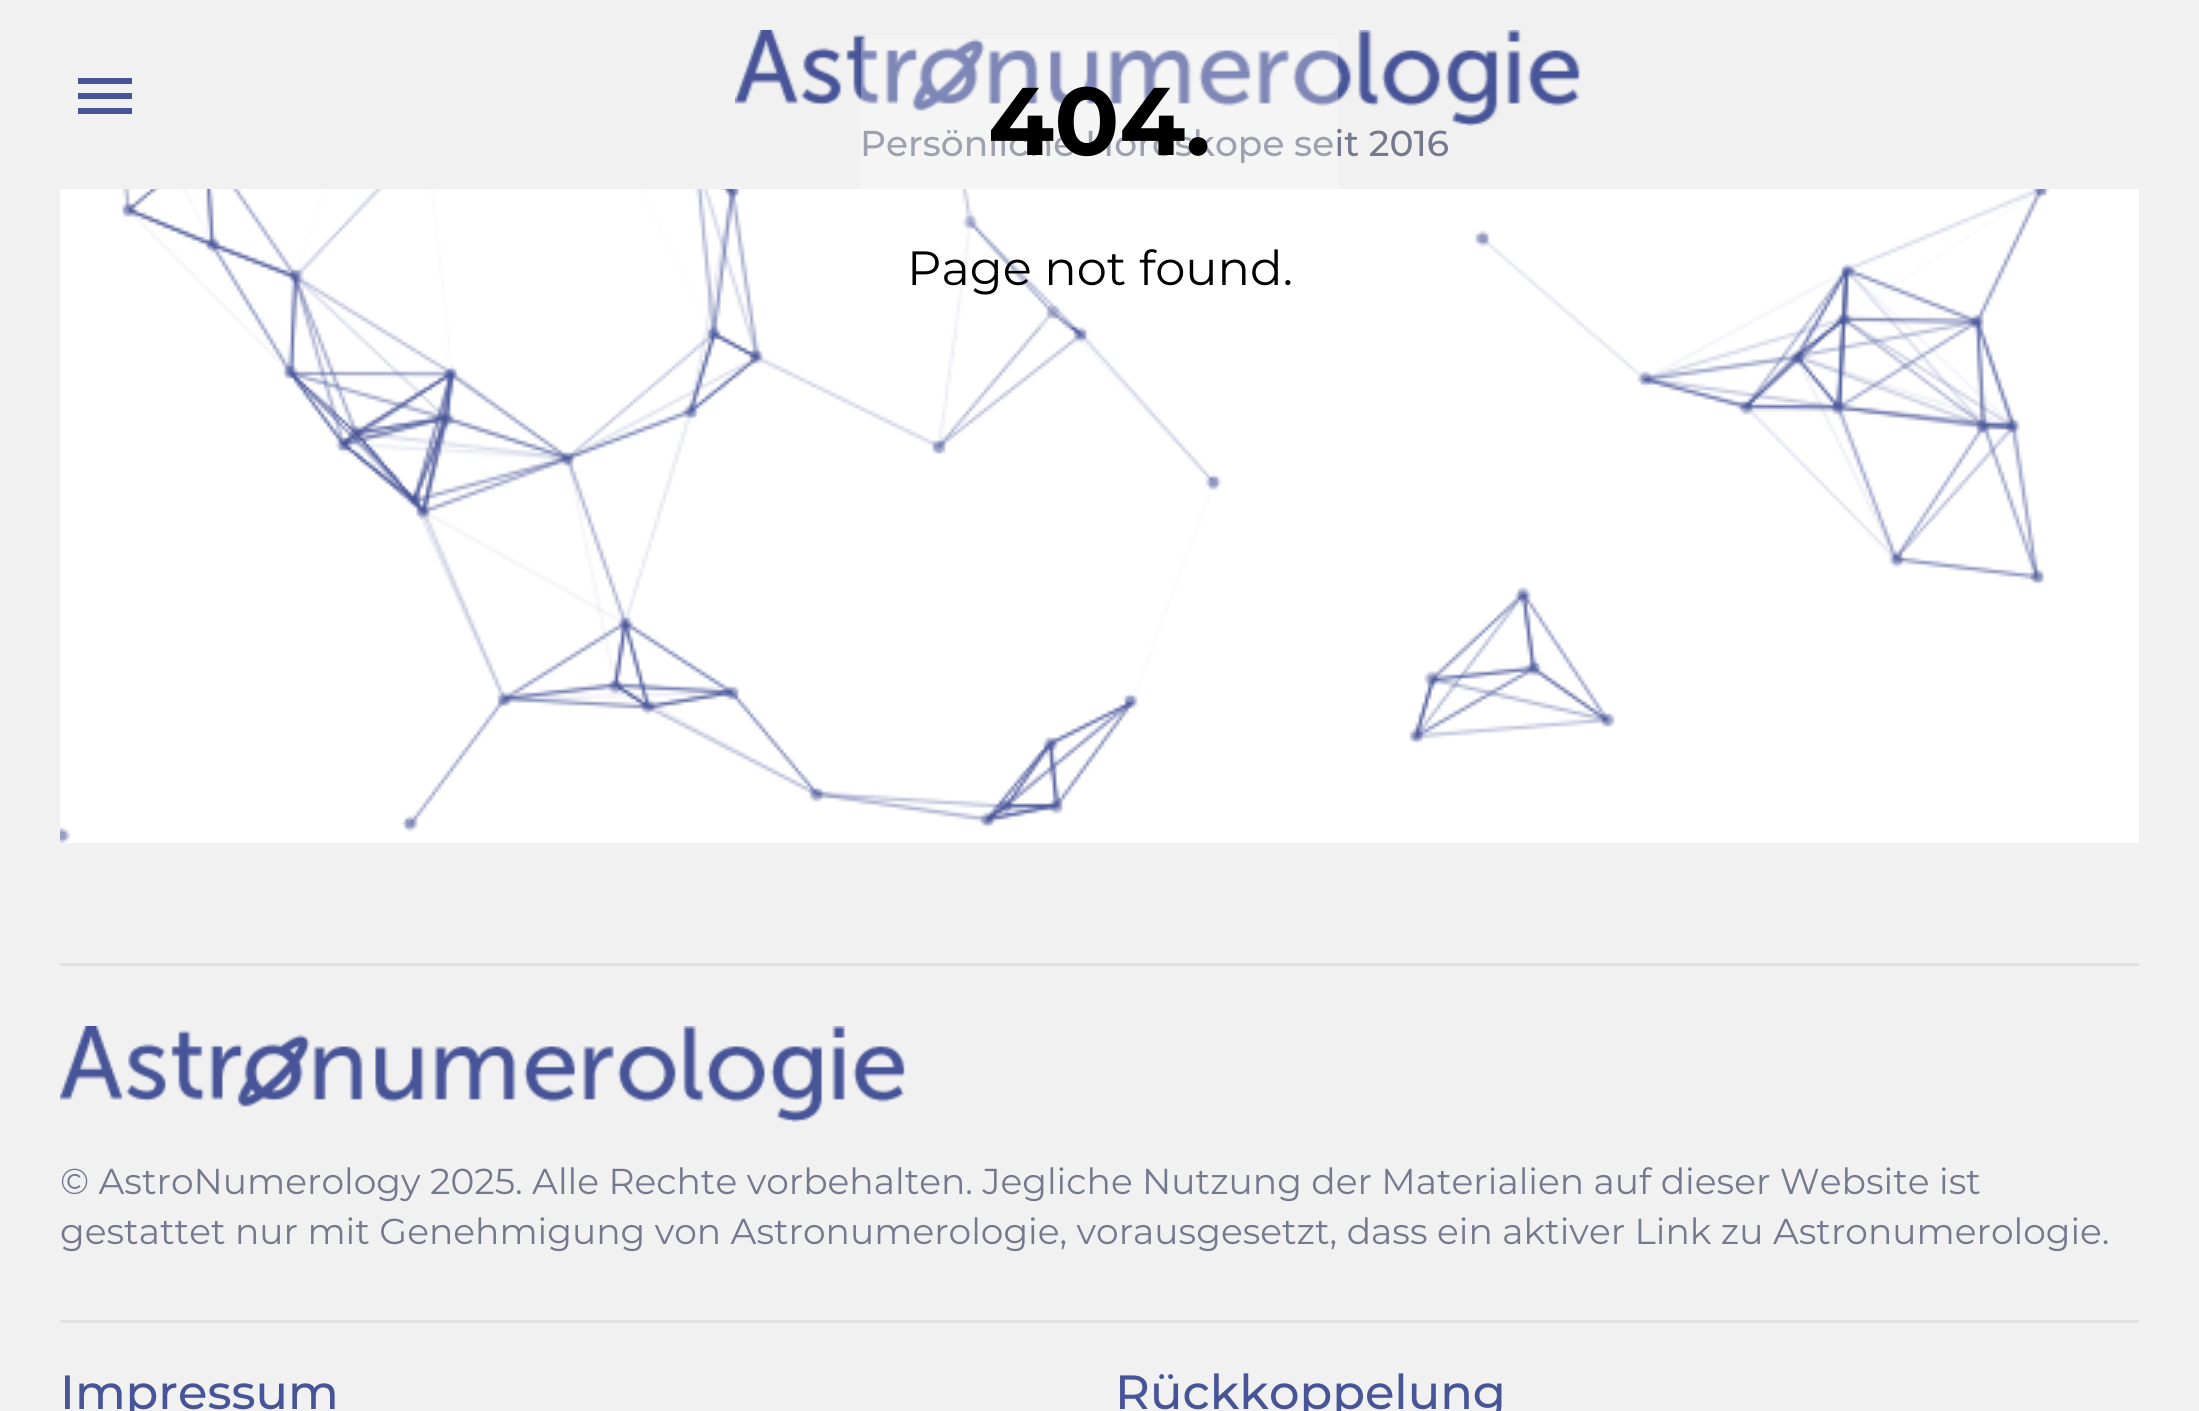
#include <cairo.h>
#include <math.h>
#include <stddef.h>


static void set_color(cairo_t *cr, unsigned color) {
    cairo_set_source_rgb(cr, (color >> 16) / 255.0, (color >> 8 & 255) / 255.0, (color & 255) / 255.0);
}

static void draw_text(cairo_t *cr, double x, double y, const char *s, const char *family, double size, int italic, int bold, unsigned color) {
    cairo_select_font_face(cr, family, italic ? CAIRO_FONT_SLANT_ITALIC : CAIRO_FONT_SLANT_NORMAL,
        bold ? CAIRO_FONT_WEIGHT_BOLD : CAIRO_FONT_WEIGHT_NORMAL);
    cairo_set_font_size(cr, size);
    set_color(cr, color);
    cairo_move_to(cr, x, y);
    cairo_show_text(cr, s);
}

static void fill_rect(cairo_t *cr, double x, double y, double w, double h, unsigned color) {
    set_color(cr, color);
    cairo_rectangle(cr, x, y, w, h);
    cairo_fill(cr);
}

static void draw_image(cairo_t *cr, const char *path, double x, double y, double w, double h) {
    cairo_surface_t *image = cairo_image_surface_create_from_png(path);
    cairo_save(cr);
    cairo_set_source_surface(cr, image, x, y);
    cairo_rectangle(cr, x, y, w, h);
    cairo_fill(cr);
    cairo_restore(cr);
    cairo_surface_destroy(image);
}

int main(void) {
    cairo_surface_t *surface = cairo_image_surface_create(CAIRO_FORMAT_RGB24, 2199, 1411);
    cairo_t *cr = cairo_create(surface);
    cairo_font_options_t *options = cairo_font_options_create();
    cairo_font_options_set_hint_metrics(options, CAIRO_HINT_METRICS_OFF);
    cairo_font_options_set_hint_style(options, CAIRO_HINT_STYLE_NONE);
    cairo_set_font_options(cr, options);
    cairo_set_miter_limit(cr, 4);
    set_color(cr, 0xF1F1F1);
    cairo_paint(cr);
    fill_rect(cr, 60, 189, 2079, 654, 0xFFFFFF);
    draw_image(cr, "assets/img1.png", 60, 189, 1990, 654);
    draw_image(cr, "assets/img2.png", 735, 30, 846, 96);
    draw_text(cr, 860, 156, "Persönliche Horoskope seit 2016", "Montserrat Medium", 36, 0, 0, 0x75798E);
    cairo_set_source_rgba(cr, 1, 1, 1, 0.3);
    cairo_rectangle(cr, 861, 39, 477, 288);
    cairo_fill(cr);
    draw_text(cr, 988, 155, "404.", "Montserrat", 96, 0, 1, 0x000000);
    draw_text(cr, 907, 285, "Page not found.", "Montserrat", 48, 0, 0, 0x000000);
    set_color(cr, 0x475497);
    cairo_new_path(cr);
    cairo_move_to(cr, 78, 78);
    cairo_line_to(cr, 132, 78);
    cairo_line_to(cr, 132, 84);
    cairo_line_to(cr, 78, 84);
    cairo_line_to(cr, 78, 78);
    cairo_move_to(cr, 78, 93);
    cairo_line_to(cr, 132, 93);
    cairo_line_to(cr, 132, 99);
    cairo_line_to(cr, 78, 99);
    cairo_line_to(cr, 78, 93);
    cairo_move_to(cr, 78, 108);
    cairo_line_to(cr, 132, 108);
    cairo_line_to(cr, 132, 114);
    cairo_line_to(cr, 78, 114);
    cairo_close_path(cr);
    cairo_fill(cr);
    fill_rect(cr, 60, 963, 2079, 3, 0xE1E1E4);
    draw_image(cr, "assets/img3.png", 60, 1026, 845, 96);
    draw_text(cr, 60, 1194, "© AstroNumerology 2025. Alle Rechte vorbehalten. Jegliche Nutzung der Materialien auf dieser Website ist", "Montserrat", 36, 0, 0, 0x75798E);
    draw_text(cr, 60, 1244, "gestattet nur mit Genehmigung von Astronumerologie, vorausgesetzt, dass ein aktiver Link zu Astronumerologie.", "Montserrat", 36, 0, 0, 0x75798E);
    fill_rect(cr, 60, 1320, 2079, 3, 0xE1E1E4);
    draw_text(cr, 60, 1409, "Impressum", "Montserrat Medium", 48, 0, 0, 0x475497);
    draw_text(cr, 1115, 1409, "Rückkoppelung", "Montserrat Medium", 48, 0, 0, 0x475497);
    cairo_surface_write_to_png(surface, "output.png");
    cairo_font_options_destroy(options);
    cairo_destroy(cr);
    cairo_surface_destroy(surface);
    return 0;
}
